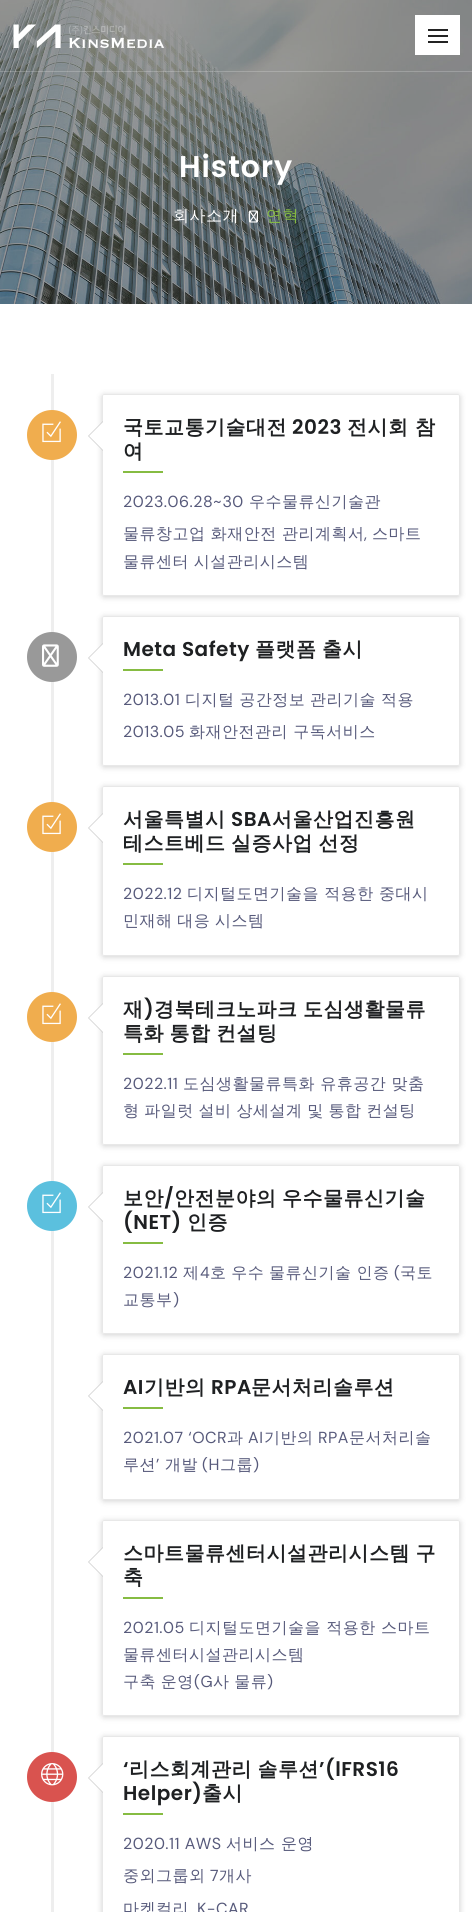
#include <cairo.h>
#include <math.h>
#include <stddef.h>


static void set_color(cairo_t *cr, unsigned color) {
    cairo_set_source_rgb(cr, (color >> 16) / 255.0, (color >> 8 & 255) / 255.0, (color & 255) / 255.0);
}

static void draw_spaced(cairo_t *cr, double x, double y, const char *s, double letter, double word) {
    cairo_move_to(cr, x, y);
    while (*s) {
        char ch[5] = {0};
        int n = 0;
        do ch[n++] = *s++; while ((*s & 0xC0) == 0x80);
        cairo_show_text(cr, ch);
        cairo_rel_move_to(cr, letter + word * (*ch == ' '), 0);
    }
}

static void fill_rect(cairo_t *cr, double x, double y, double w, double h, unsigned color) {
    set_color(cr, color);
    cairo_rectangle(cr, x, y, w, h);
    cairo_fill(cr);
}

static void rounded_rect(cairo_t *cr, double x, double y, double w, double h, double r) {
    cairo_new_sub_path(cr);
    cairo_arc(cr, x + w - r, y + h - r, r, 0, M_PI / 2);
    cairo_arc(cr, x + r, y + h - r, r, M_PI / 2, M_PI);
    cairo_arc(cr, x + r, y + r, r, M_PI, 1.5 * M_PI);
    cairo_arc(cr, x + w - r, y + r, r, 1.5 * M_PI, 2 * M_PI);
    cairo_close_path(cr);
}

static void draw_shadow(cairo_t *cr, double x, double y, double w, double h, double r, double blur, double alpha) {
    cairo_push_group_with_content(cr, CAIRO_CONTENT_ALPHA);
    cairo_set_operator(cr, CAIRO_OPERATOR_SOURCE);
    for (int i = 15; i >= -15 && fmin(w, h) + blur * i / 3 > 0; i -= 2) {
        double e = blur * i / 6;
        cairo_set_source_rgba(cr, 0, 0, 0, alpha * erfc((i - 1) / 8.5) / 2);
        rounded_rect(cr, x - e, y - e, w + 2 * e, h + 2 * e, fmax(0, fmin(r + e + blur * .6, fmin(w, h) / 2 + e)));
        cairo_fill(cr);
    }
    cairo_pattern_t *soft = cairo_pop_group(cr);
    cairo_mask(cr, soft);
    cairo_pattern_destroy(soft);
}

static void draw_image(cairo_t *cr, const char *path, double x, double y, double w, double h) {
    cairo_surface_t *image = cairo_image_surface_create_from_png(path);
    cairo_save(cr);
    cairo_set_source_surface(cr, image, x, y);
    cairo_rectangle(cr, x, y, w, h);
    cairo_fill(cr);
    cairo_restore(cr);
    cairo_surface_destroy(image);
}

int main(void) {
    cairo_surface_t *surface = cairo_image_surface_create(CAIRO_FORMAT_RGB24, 472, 1912);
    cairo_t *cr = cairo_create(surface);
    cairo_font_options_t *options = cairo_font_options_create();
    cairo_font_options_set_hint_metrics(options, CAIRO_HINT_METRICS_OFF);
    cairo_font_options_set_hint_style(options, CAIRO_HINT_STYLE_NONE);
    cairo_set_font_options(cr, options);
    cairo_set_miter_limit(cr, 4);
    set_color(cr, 0xFFFFFF);
    cairo_paint(cr);
    draw_image(cr, "assets/img2.png", 0, 0, 472, 304);
    cairo_set_source_rgba(cr, 1, 1, 1, 0.2);
    cairo_rectangle(cr, 0, 71, 472, 1);
    cairo_fill(cr);
    draw_image(cr, "assets/img1.png", 13, 24, 152, 25);
    fill_rect(cr, 415, 15, 45, 40, 0xFFFFFF);
    fill_rect(cr, 428, 29, 20, 2, 0x232323);
    fill_rect(cr, 428, 35, 20, 2, 0x232323);
    fill_rect(cr, 428, 41, 20, 2, 0x232323);
    cairo_select_font_face(cr, "Poppins SemiBold", CAIRO_FONT_SLANT_NORMAL, CAIRO_FONT_WEIGHT_NORMAL);
    cairo_set_font_size(cr, 30);
    set_color(cr, 0xFFFFFF);
    draw_spaced(cr, 179, 177, "History", 1, 0);
    cairo_select_font_face(cr, "WenQuanYi Zen Hei Medium", CAIRO_FONT_SLANT_NORMAL, CAIRO_FONT_WEIGHT_NORMAL);
    cairo_set_font_size(cr, 16);
    draw_spaced(cr, 173, 221, "회사소개", 0.5, 0);
    draw_image(cr, "assets/img3.png", 249, 210, 9, 13);
    set_color(cr, 0x86BC42);
    draw_spaced(cr, 266, 221, "연혁", 0.5, 0);
    fill_rect(cr, 51, 374, 3, 1538, 0xEEEEEE);
    set_color(cr, 0xF0AD4E);
    cairo_new_path(cr);
    cairo_arc(cr, 52, 435, 25, 0, 2 * M_PI);
    cairo_fill(cr);
    draw_image(cr, "assets/img4.png", 42, 421, 19, 22);
    cairo_save(cr);
    cairo_set_fill_rule(cr, CAIRO_FILL_RULE_EVEN_ODD);
    cairo_new_path(cr);
    cairo_move_to(cr, 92, 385);
    cairo_line_to(cr, 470, 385);
    cairo_line_to(cr, 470, 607);
    cairo_line_to(cr, 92, 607);
    cairo_close_path(cr);
    cairo_move_to(cr, 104, 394);
    cairo_line_to(cr, 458, 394);
    cairo_curve_to(cr, 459, 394, 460, 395, 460, 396);
    cairo_line_to(cr, 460, 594);
    cairo_curve_to(cr, 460, 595, 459, 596, 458, 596);
    cairo_line_to(cr, 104, 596);
    cairo_curve_to(cr, 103, 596, 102, 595, 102, 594);
    cairo_line_to(cr, 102, 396);
    cairo_curve_to(cr, 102, 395, 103, 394, 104, 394);
    cairo_close_path(cr);
    cairo_clip(cr);
    set_color(cr, 0x000000);
    draw_shadow(cr, 102, 395, 358, 202, 2, 3, 0.18);
    cairo_restore(cr);
    rounded_rect(cr, 102.5, 394.5, 357, 201, 1.5);
    set_color(cr, 0xE8E8E8);
    cairo_set_line_width(cr, 1);
    cairo_stroke(cr);
    set_color(cr, 0xCCCCCC);
    cairo_new_path(cr);
    cairo_move_to(cr, 103, 421);
    cairo_line_to(cr, 103, 451);
    cairo_line_to(cr, 88, 436);
    cairo_close_path(cr);
    cairo_fill(cr);
    cairo_select_font_face(cr, "WenQuanYi Zen Hei", CAIRO_FONT_SLANT_NORMAL, CAIRO_FONT_WEIGHT_BOLD);
    cairo_set_font_size(cr, 20);
    set_color(cr, 0x1E2022);
    draw_spaced(cr, 123, 434, "국토교통기술대전", 0.5, 0);
    cairo_select_font_face(cr, "Poppins SemiBold", CAIRO_FONT_SLANT_NORMAL, CAIRO_FONT_WEIGHT_NORMAL);
    draw_spaced(cr, 292, 434, "2023", 0.5, 0);
    cairo_select_font_face(cr, "WenQuanYi Zen Hei", CAIRO_FONT_SLANT_NORMAL, CAIRO_FONT_WEIGHT_BOLD);
    draw_spaced(cr, 347, 434, "전시회 참", 0.5, 0);
    draw_spaced(cr, 123, 458, "여", 0.5, 0);
    fill_rect(cr, 123, 471, 40, 2, 0x86BC42);
    set_color(cr, 0xFFFFFF);
    cairo_new_path(cr);
    cairo_move_to(cr, 103, 422);
    cairo_line_to(cr, 103, 450);
    cairo_line_to(cr, 89, 436);
    cairo_close_path(cr);
    cairo_fill(cr);
    cairo_select_font_face(cr, "DM Sans", CAIRO_FONT_SLANT_NORMAL, CAIRO_FONT_WEIGHT_NORMAL);
    cairo_set_font_size(cr, 16);
    set_color(cr, 0x575A7B);
    draw_spaced(cr, 123, 507, "2023.06.28~30", 0.5, 0);
    cairo_select_font_face(cr, "WenQuanYi Zen Hei Medium", CAIRO_FONT_SLANT_NORMAL, CAIRO_FONT_WEIGHT_NORMAL);
    draw_spaced(cr, 249, 507, "우수물류신기술관", 0.5, 0);
    draw_spaced(cr, 123, 539, "물류창고업 화재안전 관리계획서", 0.5, 0);
    cairo_select_font_face(cr, "DM Sans", CAIRO_FONT_SLANT_NORMAL, CAIRO_FONT_WEIGHT_NORMAL);
    draw_spaced(cr, 364, 539, ",", 0.5, 0);
    cairo_select_font_face(cr, "WenQuanYi Zen Hei Medium", CAIRO_FONT_SLANT_NORMAL, CAIRO_FONT_WEIGHT_NORMAL);
    draw_spaced(cr, 372, 539, "스마트", 0.5, 0);
    draw_spaced(cr, 123, 567, "물류센터 시설관리시스템", 0.5, -0.5);
    set_color(cr, 0x999999);
    cairo_new_path(cr);
    cairo_arc(cr, 52, 657, 25, 0, 2 * M_PI);
    cairo_fill(cr);
    draw_image(cr, "assets/img5.png", 42, 644, 17, 23);
    cairo_save(cr);
    cairo_set_fill_rule(cr, CAIRO_FILL_RULE_EVEN_ODD);
    cairo_new_path(cr);
    cairo_move_to(cr, 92, 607);
    cairo_line_to(cr, 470, 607);
    cairo_line_to(cr, 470, 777);
    cairo_line_to(cr, 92, 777);
    cairo_close_path(cr);
    cairo_move_to(cr, 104, 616);
    cairo_line_to(cr, 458, 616);
    cairo_curve_to(cr, 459, 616, 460, 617, 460, 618);
    cairo_line_to(cr, 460, 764);
    cairo_curve_to(cr, 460, 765, 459, 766, 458, 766);
    cairo_line_to(cr, 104, 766);
    cairo_curve_to(cr, 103, 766, 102, 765, 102, 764);
    cairo_line_to(cr, 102, 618);
    cairo_curve_to(cr, 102, 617, 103, 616, 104, 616);
    cairo_close_path(cr);
    cairo_clip(cr);
    set_color(cr, 0x000000);
    draw_shadow(cr, 102, 617, 358, 150, 2, 3, 0.18);
    cairo_restore(cr);
    rounded_rect(cr, 102.5, 616.5, 357, 149, 1.5);
    set_color(cr, 0xE8E8E8);
    cairo_stroke(cr);
    set_color(cr, 0xCCCCCC);
    cairo_new_path(cr);
    cairo_move_to(cr, 103, 643);
    cairo_line_to(cr, 103, 673);
    cairo_line_to(cr, 88, 658);
    cairo_close_path(cr);
    cairo_fill(cr);
    cairo_select_font_face(cr, "Poppins SemiBold", CAIRO_FONT_SLANT_NORMAL, CAIRO_FONT_WEIGHT_NORMAL);
    cairo_set_font_size(cr, 20);
    set_color(cr, 0x1E2022);
    draw_spaced(cr, 123, 656, "Meta Safety", 0.5, 0);
    cairo_select_font_face(cr, "WenQuanYi Zen Hei", CAIRO_FONT_SLANT_NORMAL, CAIRO_FONT_WEIGHT_BOLD);
    draw_spaced(cr, 255, 656, "플랫폼", 0.5, 0);
    draw_spaced(cr, 322, 656, "출시", 0.5, 0);
    fill_rect(cr, 123, 669, 40, 2, 0x86BC42);
    set_color(cr, 0xFFFFFF);
    cairo_new_path(cr);
    cairo_move_to(cr, 103, 644);
    cairo_line_to(cr, 103, 672);
    cairo_line_to(cr, 89, 658);
    cairo_close_path(cr);
    cairo_fill(cr);
    cairo_select_font_face(cr, "DM Sans", CAIRO_FONT_SLANT_NORMAL, CAIRO_FONT_WEIGHT_NORMAL);
    cairo_set_font_size(cr, 16);
    set_color(cr, 0x575A7B);
    draw_spaced(cr, 123, 705, "2013.01", 0.5, 0);
    cairo_select_font_face(cr, "WenQuanYi Zen Hei Medium", CAIRO_FONT_SLANT_NORMAL, CAIRO_FONT_WEIGHT_NORMAL);
    draw_spaced(cr, 185, 705, "디지털 공간정보 관리기술 적용", 0.5, -0.5);
    cairo_select_font_face(cr, "DM Sans", CAIRO_FONT_SLANT_NORMAL, CAIRO_FONT_WEIGHT_NORMAL);
    draw_spaced(cr, 123, 737, "2013.05", 0.5, 0);
    cairo_select_font_face(cr, "WenQuanYi Zen Hei Medium", CAIRO_FONT_SLANT_NORMAL, CAIRO_FONT_WEIGHT_NORMAL);
    draw_spaced(cr, 189, 737, "화재안전관리 구독서비스", 0.5, 0);
    set_color(cr, 0xF0AD4E);
    cairo_new_path(cr);
    cairo_arc(cr, 52, 827, 25, 0, 2 * M_PI);
    cairo_fill(cr);
    draw_image(cr, "assets/img4.png", 42, 813, 19, 22);
    cairo_save(cr);
    cairo_set_fill_rule(cr, CAIRO_FILL_RULE_EVEN_ODD);
    cairo_new_path(cr);
    cairo_move_to(cr, 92, 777);
    cairo_line_to(cr, 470, 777);
    cairo_line_to(cr, 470, 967);
    cairo_line_to(cr, 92, 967);
    cairo_close_path(cr);
    cairo_move_to(cr, 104, 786);
    cairo_line_to(cr, 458, 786);
    cairo_curve_to(cr, 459, 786, 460, 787, 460, 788);
    cairo_line_to(cr, 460, 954);
    cairo_curve_to(cr, 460, 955, 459, 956, 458, 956);
    cairo_line_to(cr, 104, 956);
    cairo_curve_to(cr, 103, 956, 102, 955, 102, 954);
    cairo_line_to(cr, 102, 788);
    cairo_curve_to(cr, 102, 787, 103, 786, 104, 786);
    cairo_close_path(cr);
    cairo_clip(cr);
    set_color(cr, 0x000000);
    draw_shadow(cr, 102, 787, 358, 170, 2, 3, 0.18);
    cairo_restore(cr);
    rounded_rect(cr, 102.5, 786.5, 357, 169, 1.5);
    set_color(cr, 0xE8E8E8);
    cairo_stroke(cr);
    set_color(cr, 0xCCCCCC);
    cairo_new_path(cr);
    cairo_move_to(cr, 103, 813);
    cairo_line_to(cr, 103, 843);
    cairo_line_to(cr, 88, 828);
    cairo_close_path(cr);
    cairo_fill(cr);
    cairo_select_font_face(cr, "WenQuanYi Zen Hei", CAIRO_FONT_SLANT_NORMAL, CAIRO_FONT_WEIGHT_BOLD);
    cairo_set_font_size(cr, 20);
    set_color(cr, 0x1E2022);
    draw_spaced(cr, 123, 826, "서울특별시", 0.5, 0);
    cairo_select_font_face(cr, "Poppins SemiBold", CAIRO_FONT_SLANT_NORMAL, CAIRO_FONT_WEIGHT_NORMAL);
    draw_spaced(cr, 231, 826, "SBA", 0.5, 0);
    cairo_select_font_face(cr, "WenQuanYi Zen Hei", CAIRO_FONT_SLANT_NORMAL, CAIRO_FONT_WEIGHT_BOLD);
    draw_spaced(cr, 272, 826, "서울산업진흥원", 0.5, 0);
    draw_spaced(cr, 123, 850, "테스트베드 실증사업 선정", 0.5, -1);
    fill_rect(cr, 123, 863, 40, 2, 0x86BC42);
    set_color(cr, 0xFFFFFF);
    cairo_new_path(cr);
    cairo_move_to(cr, 103, 814);
    cairo_line_to(cr, 103, 842);
    cairo_line_to(cr, 89, 828);
    cairo_close_path(cr);
    cairo_fill(cr);
    cairo_select_font_face(cr, "DM Sans", CAIRO_FONT_SLANT_NORMAL, CAIRO_FONT_WEIGHT_NORMAL);
    cairo_set_font_size(cr, 16);
    set_color(cr, 0x575A7B);
    draw_spaced(cr, 123, 899, "2022.12", 0.5, 0);
    cairo_select_font_face(cr, "WenQuanYi Zen Hei Medium", CAIRO_FONT_SLANT_NORMAL, CAIRO_FONT_WEIGHT_NORMAL);
    draw_spaced(cr, 187, 899, "디지털도면기술을 적용한 중대시", 0.5, 0);
    draw_spaced(cr, 123, 926, "민재해 대응 시스템", 0.5, -0.5);
    set_color(cr, 0xF0AD4E);
    cairo_new_path(cr);
    cairo_arc(cr, 52, 1017, 25, 0, 2 * M_PI);
    cairo_fill(cr);
    draw_image(cr, "assets/img4.png", 42, 1003, 19, 22);
    cairo_save(cr);
    cairo_set_fill_rule(cr, CAIRO_FILL_RULE_EVEN_ODD);
    cairo_new_path(cr);
    cairo_move_to(cr, 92, 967);
    cairo_line_to(cr, 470, 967);
    cairo_line_to(cr, 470, 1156);
    cairo_line_to(cr, 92, 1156);
    cairo_close_path(cr);
    cairo_move_to(cr, 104, 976);
    cairo_line_to(cr, 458, 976);
    cairo_curve_to(cr, 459, 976, 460, 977, 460, 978);
    cairo_line_to(cr, 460, 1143);
    cairo_curve_to(cr, 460, 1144, 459, 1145, 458, 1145);
    cairo_line_to(cr, 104, 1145);
    cairo_curve_to(cr, 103, 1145, 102, 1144, 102, 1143);
    cairo_line_to(cr, 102, 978);
    cairo_curve_to(cr, 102, 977, 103, 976, 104, 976);
    cairo_close_path(cr);
    cairo_clip(cr);
    set_color(cr, 0x000000);
    draw_shadow(cr, 102, 977, 358, 169, 2, 3, 0.18);
    cairo_restore(cr);
    rounded_rect(cr, 102.5, 976.5, 357, 168, 1.5);
    set_color(cr, 0xE8E8E8);
    cairo_stroke(cr);
    set_color(cr, 0xCCCCCC);
    cairo_new_path(cr);
    cairo_move_to(cr, 103, 1003);
    cairo_line_to(cr, 103, 1033);
    cairo_line_to(cr, 88, 1018);
    cairo_close_path(cr);
    cairo_fill(cr);
    cairo_select_font_face(cr, "WenQuanYi Zen Hei", CAIRO_FONT_SLANT_NORMAL, CAIRO_FONT_WEIGHT_BOLD);
    cairo_set_font_size(cr, 20);
    set_color(cr, 0x1E2022);
    draw_spaced(cr, 123, 1016, "재", 0.5, 0);
    cairo_select_font_face(cr, "Poppins SemiBold", CAIRO_FONT_SLANT_NORMAL, CAIRO_FONT_WEIGHT_NORMAL);
    draw_spaced(cr, 144, 1016, ")", 0.5, 0);
    cairo_select_font_face(cr, "WenQuanYi Zen Hei", CAIRO_FONT_SLANT_NORMAL, CAIRO_FONT_WEIGHT_BOLD);
    draw_spaced(cr, 154, 1016, "경북테크노파크 도심생활물류", 0.5, -1);
    draw_spaced(cr, 123, 1040, "특화 통합 컨설팅", 0.5, -1);
    fill_rect(cr, 123, 1053, 40, 2, 0x86BC42);
    set_color(cr, 0xFFFFFF);
    cairo_new_path(cr);
    cairo_move_to(cr, 103, 1004);
    cairo_line_to(cr, 103, 1032);
    cairo_line_to(cr, 89, 1018);
    cairo_close_path(cr);
    cairo_fill(cr);
    cairo_select_font_face(cr, "DM Sans", CAIRO_FONT_SLANT_NORMAL, CAIRO_FONT_WEIGHT_NORMAL);
    cairo_set_font_size(cr, 16);
    set_color(cr, 0x575A7B);
    draw_spaced(cr, 123, 1089, "2022.11", 0.5, 0);
    cairo_select_font_face(cr, "WenQuanYi Zen Hei Medium", CAIRO_FONT_SLANT_NORMAL, CAIRO_FONT_WEIGHT_NORMAL);
    draw_spaced(cr, 183, 1089, "도심생활물류특화 유휴공간 맞춤", 0.5, 0);
    draw_spaced(cr, 123, 1116, "형 파일럿 설비 상세설계 및 통합 컨설팅", 0.5, -0.5);
    set_color(cr, 0x5BC0DE);
    cairo_new_path(cr);
    cairo_arc(cr, 52, 1206, 25, 0, 2 * M_PI);
    cairo_fill(cr);
    draw_image(cr, "assets/img6.png", 42, 1192, 19, 22);
    cairo_save(cr);
    cairo_set_fill_rule(cr, CAIRO_FILL_RULE_EVEN_ODD);
    cairo_new_path(cr);
    cairo_move_to(cr, 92, 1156);
    cairo_line_to(cr, 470, 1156);
    cairo_line_to(cr, 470, 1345);
    cairo_line_to(cr, 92, 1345);
    cairo_close_path(cr);
    cairo_move_to(cr, 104, 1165);
    cairo_line_to(cr, 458, 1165);
    cairo_curve_to(cr, 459, 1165, 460, 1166, 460, 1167);
    cairo_line_to(cr, 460, 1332);
    cairo_curve_to(cr, 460, 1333, 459, 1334, 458, 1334);
    cairo_line_to(cr, 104, 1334);
    cairo_curve_to(cr, 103, 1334, 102, 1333, 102, 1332);
    cairo_line_to(cr, 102, 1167);
    cairo_curve_to(cr, 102, 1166, 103, 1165, 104, 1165);
    cairo_close_path(cr);
    cairo_clip(cr);
    set_color(cr, 0x000000);
    draw_shadow(cr, 102, 1166, 358, 169, 2, 3, 0.18);
    cairo_restore(cr);
    rounded_rect(cr, 102.5, 1165.5, 357, 168, 1.5);
    set_color(cr, 0xE8E8E8);
    cairo_stroke(cr);
    set_color(cr, 0xCCCCCC);
    cairo_new_path(cr);
    cairo_move_to(cr, 103, 1192);
    cairo_line_to(cr, 103, 1222);
    cairo_line_to(cr, 88, 1207);
    cairo_close_path(cr);
    cairo_fill(cr);
    cairo_select_font_face(cr, "WenQuanYi Zen Hei", CAIRO_FONT_SLANT_NORMAL, CAIRO_FONT_WEIGHT_BOLD);
    cairo_set_font_size(cr, 20);
    set_color(cr, 0x1E2022);
    draw_spaced(cr, 123, 1205, "보안", 0.5, 0);
    cairo_select_font_face(cr, "Poppins SemiBold", CAIRO_FONT_SLANT_NORMAL, CAIRO_FONT_WEIGHT_NORMAL);
    draw_spaced(cr, 164, 1205, "/", 0.5, 0);
    cairo_select_font_face(cr, "WenQuanYi Zen Hei", CAIRO_FONT_SLANT_NORMAL, CAIRO_FONT_WEIGHT_BOLD);
    draw_spaced(cr, 174, 1205, "안전분야의 우수물류신기술", 0.5, -1);
    cairo_select_font_face(cr, "Poppins SemiBold", CAIRO_FONT_SLANT_NORMAL, CAIRO_FONT_WEIGHT_NORMAL);
    draw_spaced(cr, 123, 1229, "(NET)", 0.5, 0);
    cairo_select_font_face(cr, "WenQuanYi Zen Hei", CAIRO_FONT_SLANT_NORMAL, CAIRO_FONT_WEIGHT_BOLD);
    draw_spaced(cr, 187, 1229, "인증", 0.5, 0);
    fill_rect(cr, 123, 1242, 40, 2, 0x86BC42);
    set_color(cr, 0xFFFFFF);
    cairo_new_path(cr);
    cairo_move_to(cr, 103, 1193);
    cairo_line_to(cr, 103, 1221);
    cairo_line_to(cr, 89, 1207);
    cairo_close_path(cr);
    cairo_fill(cr);
    cairo_select_font_face(cr, "DM Sans", CAIRO_FONT_SLANT_NORMAL, CAIRO_FONT_WEIGHT_NORMAL);
    cairo_set_font_size(cr, 16);
    set_color(cr, 0x575A7B);
    draw_spaced(cr, 123, 1278, "2021.12", 0.5, 0);
    cairo_select_font_face(cr, "WenQuanYi Zen Hei Medium", CAIRO_FONT_SLANT_NORMAL, CAIRO_FONT_WEIGHT_NORMAL);
    draw_spaced(cr, 183, 1278, "제", 0.5, 0);
    cairo_select_font_face(cr, "DM Sans", CAIRO_FONT_SLANT_NORMAL, CAIRO_FONT_WEIGHT_NORMAL);
    draw_spaced(cr, 200, 1278, "4", 0.5, 0);
    cairo_select_font_face(cr, "WenQuanYi Zen Hei Medium", CAIRO_FONT_SLANT_NORMAL, CAIRO_FONT_WEIGHT_NORMAL);
    draw_spaced(cr, 210, 1278, "호 우수 물류신기술 인증", 0.5, -0.5);
    cairo_select_font_face(cr, "DM Sans", CAIRO_FONT_SLANT_NORMAL, CAIRO_FONT_WEIGHT_NORMAL);
    draw_spaced(cr, 394, 1278, "(", 0.5, 0);
    cairo_select_font_face(cr, "WenQuanYi Zen Hei Medium", CAIRO_FONT_SLANT_NORMAL, CAIRO_FONT_WEIGHT_NORMAL);
    draw_spaced(cr, 400, 1278, "국토", 0.5, 0);
    draw_spaced(cr, 123, 1305, "교통부", 0.5, 0);
    cairo_select_font_face(cr, "DM Sans", CAIRO_FONT_SLANT_NORMAL, CAIRO_FONT_WEIGHT_NORMAL);
    draw_spaced(cr, 173, 1305, ")", 0.5, 0);
    cairo_save(cr);
    cairo_set_fill_rule(cr, CAIRO_FILL_RULE_EVEN_ODD);
    cairo_new_path(cr);
    cairo_move_to(cr, 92, 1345);
    cairo_line_to(cr, 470, 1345);
    cairo_line_to(cr, 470, 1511);
    cairo_line_to(cr, 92, 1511);
    cairo_close_path(cr);
    cairo_move_to(cr, 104, 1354);
    cairo_line_to(cr, 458, 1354);
    cairo_curve_to(cr, 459, 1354, 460, 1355, 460, 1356);
    cairo_line_to(cr, 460, 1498);
    cairo_curve_to(cr, 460, 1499, 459, 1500, 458, 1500);
    cairo_line_to(cr, 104, 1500);
    cairo_curve_to(cr, 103, 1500, 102, 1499, 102, 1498);
    cairo_line_to(cr, 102, 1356);
    cairo_curve_to(cr, 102, 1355, 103, 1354, 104, 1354);
    cairo_close_path(cr);
    cairo_clip(cr);
    set_color(cr, 0x000000);
    draw_shadow(cr, 102, 1355, 358, 146, 2, 3, 0.18);
    cairo_restore(cr);
    rounded_rect(cr, 102.5, 1354.5, 357, 145, 1.5);
    set_color(cr, 0xE8E8E8);
    cairo_stroke(cr);
    set_color(cr, 0xCCCCCC);
    cairo_new_path(cr);
    cairo_move_to(cr, 103, 1381);
    cairo_line_to(cr, 103, 1411);
    cairo_line_to(cr, 88, 1396);
    cairo_close_path(cr);
    cairo_fill(cr);
    cairo_select_font_face(cr, "Poppins SemiBold", CAIRO_FONT_SLANT_NORMAL, CAIRO_FONT_WEIGHT_NORMAL);
    cairo_set_font_size(cr, 20);
    set_color(cr, 0x1E2022);
    draw_spaced(cr, 123, 1394, "AI", 0.5, 0);
    cairo_select_font_face(cr, "WenQuanYi Zen Hei", CAIRO_FONT_SLANT_NORMAL, CAIRO_FONT_WEIGHT_BOLD);
    draw_spaced(cr, 144, 1394, "기반의", 0.5, 0);
    cairo_select_font_face(cr, "Poppins SemiBold", CAIRO_FONT_SLANT_NORMAL, CAIRO_FONT_WEIGHT_NORMAL);
    draw_spaced(cr, 211, 1394, "RPA", 0.5, 0);
    cairo_select_font_face(cr, "WenQuanYi Zen Hei", CAIRO_FONT_SLANT_NORMAL, CAIRO_FONT_WEIGHT_BOLD);
    draw_spaced(cr, 251, 1394, "문서처리솔루션", 0.5, 0);
    fill_rect(cr, 123, 1407, 40, 2, 0x86BC42);
    set_color(cr, 0xFFFFFF);
    cairo_new_path(cr);
    cairo_move_to(cr, 103, 1382);
    cairo_line_to(cr, 103, 1410);
    cairo_line_to(cr, 89, 1396);
    cairo_close_path(cr);
    cairo_fill(cr);
    cairo_select_font_face(cr, "DM Sans", CAIRO_FONT_SLANT_NORMAL, CAIRO_FONT_WEIGHT_NORMAL);
    cairo_set_font_size(cr, 16);
    set_color(cr, 0x575A7B);
    draw_spaced(cr, 123, 1443, "2021.07 ‘OCR", 0.5, 0);
    cairo_select_font_face(cr, "WenQuanYi Zen Hei Medium", CAIRO_FONT_SLANT_NORMAL, CAIRO_FONT_WEIGHT_NORMAL);
    draw_spaced(cr, 227, 1443, "과", 0.5, 0);
    cairo_select_font_face(cr, "DM Sans", CAIRO_FONT_SLANT_NORMAL, CAIRO_FONT_WEIGHT_NORMAL);
    draw_spaced(cr, 248, 1443, "AI", 0.5, 0);
    cairo_select_font_face(cr, "WenQuanYi Zen Hei Medium", CAIRO_FONT_SLANT_NORMAL, CAIRO_FONT_WEIGHT_NORMAL);
    draw_spaced(cr, 264, 1443, "기반의", 0.5, 0);
    cairo_select_font_face(cr, "DM Sans", CAIRO_FONT_SLANT_NORMAL, CAIRO_FONT_WEIGHT_NORMAL);
    draw_spaced(cr, 318, 1443, "RPA", 0.5, 0);
    cairo_select_font_face(cr, "WenQuanYi Zen Hei Medium", CAIRO_FONT_SLANT_NORMAL, CAIRO_FONT_WEIGHT_NORMAL);
    draw_spaced(cr, 349, 1443, "문서처리솔", 0.5, 0);
    draw_spaced(cr, 123, 1470, "루션", 0.5, 0);
    cairo_select_font_face(cr, "DM Sans", CAIRO_FONT_SLANT_NORMAL, CAIRO_FONT_WEIGHT_NORMAL);
    draw_spaced(cr, 156, 1470, "’", 0.5, 0);
    cairo_select_font_face(cr, "WenQuanYi Zen Hei Medium", CAIRO_FONT_SLANT_NORMAL, CAIRO_FONT_WEIGHT_NORMAL);
    draw_spaced(cr, 165, 1470, "개발", 0.5, 0);
    cairo_select_font_face(cr, "DM Sans", CAIRO_FONT_SLANT_NORMAL, CAIRO_FONT_WEIGHT_NORMAL);
    draw_spaced(cr, 202, 1470, "(H", 0.5, 0);
    cairo_select_font_face(cr, "WenQuanYi Zen Hei Medium", CAIRO_FONT_SLANT_NORMAL, CAIRO_FONT_WEIGHT_NORMAL);
    draw_spaced(cr, 220, 1470, "그룹", 0.5, 0);
    cairo_select_font_face(cr, "DM Sans", CAIRO_FONT_SLANT_NORMAL, CAIRO_FONT_WEIGHT_NORMAL);
    draw_spaced(cr, 253, 1470, ")", 0.5, 0);
    cairo_save(cr);
    cairo_set_fill_rule(cr, CAIRO_FILL_RULE_EVEN_ODD);
    cairo_new_path(cr);
    cairo_move_to(cr, 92, 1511);
    cairo_line_to(cr, 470, 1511);
    cairo_line_to(cr, 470, 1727);
    cairo_line_to(cr, 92, 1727);
    cairo_close_path(cr);
    cairo_move_to(cr, 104, 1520);
    cairo_line_to(cr, 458, 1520);
    cairo_curve_to(cr, 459, 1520, 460, 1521, 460, 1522);
    cairo_line_to(cr, 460, 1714);
    cairo_curve_to(cr, 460, 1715, 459, 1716, 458, 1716);
    cairo_line_to(cr, 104, 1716);
    cairo_curve_to(cr, 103, 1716, 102, 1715, 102, 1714);
    cairo_line_to(cr, 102, 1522);
    cairo_curve_to(cr, 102, 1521, 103, 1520, 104, 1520);
    cairo_close_path(cr);
    cairo_clip(cr);
    set_color(cr, 0x000000);
    draw_shadow(cr, 102, 1521, 358, 196, 2, 3, 0.18);
    cairo_restore(cr);
    rounded_rect(cr, 102.5, 1520.5, 357, 195, 1.5);
    set_color(cr, 0xE8E8E8);
    cairo_stroke(cr);
    set_color(cr, 0xCCCCCC);
    cairo_new_path(cr);
    cairo_move_to(cr, 103, 1547);
    cairo_line_to(cr, 103, 1577);
    cairo_line_to(cr, 88, 1562);
    cairo_close_path(cr);
    cairo_fill(cr);
    cairo_select_font_face(cr, "WenQuanYi Zen Hei", CAIRO_FONT_SLANT_NORMAL, CAIRO_FONT_WEIGHT_BOLD);
    cairo_set_font_size(cr, 20);
    set_color(cr, 0x1E2022);
    draw_spaced(cr, 123, 1560, "스마트물류센터시설관리시스템 구", 0.5, -1);
    draw_spaced(cr, 123, 1584, "축", 0.5, 0);
    fill_rect(cr, 123, 1597, 40, 2, 0x86BC42);
    set_color(cr, 0xFFFFFF);
    cairo_new_path(cr);
    cairo_move_to(cr, 103, 1548);
    cairo_line_to(cr, 103, 1576);
    cairo_line_to(cr, 89, 1562);
    cairo_close_path(cr);
    cairo_fill(cr);
    cairo_select_font_face(cr, "DM Sans", CAIRO_FONT_SLANT_NORMAL, CAIRO_FONT_WEIGHT_NORMAL);
    cairo_set_font_size(cr, 16);
    set_color(cr, 0x575A7B);
    draw_spaced(cr, 123, 1633, "2021.05", 0.5, 0);
    cairo_select_font_face(cr, "WenQuanYi Zen Hei Medium", CAIRO_FONT_SLANT_NORMAL, CAIRO_FONT_WEIGHT_NORMAL);
    draw_spaced(cr, 189, 1633, "디지털도면기술을 적용한 스마트", 0.5, 0);
    draw_spaced(cr, 123, 1660, "물류센터시설관리시스템", 0.5, 0);
    draw_spaced(cr, 123, 1687, "구축 운영", 0.5, -0.5);
    cairo_select_font_face(cr, "DM Sans", CAIRO_FONT_SLANT_NORMAL, CAIRO_FONT_WEIGHT_NORMAL);
    draw_spaced(cr, 194, 1687, "(G", 0.5, 0);
    cairo_select_font_face(cr, "WenQuanYi Zen Hei Medium", CAIRO_FONT_SLANT_NORMAL, CAIRO_FONT_WEIGHT_NORMAL);
    draw_spaced(cr, 213, 1687, "사 물류", 0.5, -0.5);
    cairo_select_font_face(cr, "DM Sans", CAIRO_FONT_SLANT_NORMAL, CAIRO_FONT_WEIGHT_NORMAL);
    draw_spaced(cr, 267, 1687, ")", 0.5, 0);
    set_color(cr, 0xD9534F);
    cairo_new_path(cr);
    cairo_arc(cr, 52, 1777, 25, 0, 2 * M_PI);
    cairo_fill(cr);
    draw_image(cr, "assets/img7.png", 41, 1763, 23, 23);
    cairo_save(cr);
    cairo_set_fill_rule(cr, CAIRO_FILL_RULE_EVEN_ODD);
    cairo_new_path(cr);
    cairo_move_to(cr, 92, 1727);
    cairo_line_to(cr, 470, 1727);
    cairo_line_to(cr, 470, 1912);
    cairo_line_to(cr, 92, 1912);
    cairo_close_path(cr);
    cairo_move_to(cr, 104, 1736);
    cairo_line_to(cr, 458, 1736);
    cairo_curve_to(cr, 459, 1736, 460, 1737, 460, 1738);
    cairo_line_to(cr, 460, 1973);
    cairo_curve_to(cr, 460, 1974, 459, 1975, 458, 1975);
    cairo_line_to(cr, 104, 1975);
    cairo_curve_to(cr, 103, 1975, 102, 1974, 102, 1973);
    cairo_line_to(cr, 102, 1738);
    cairo_curve_to(cr, 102, 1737, 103, 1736, 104, 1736);
    cairo_close_path(cr);
    cairo_clip(cr);
    set_color(cr, 0x000000);
    draw_shadow(cr, 102, 1737, 358, 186, 2, 3, 0.18);
    cairo_restore(cr);
    rounded_rect(cr, 102.5, 1736.5, 357, 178, 1.5);
    set_color(cr, 0xE8E8E8);
    cairo_stroke(cr);
    set_color(cr, 0xCCCCCC);
    cairo_new_path(cr);
    cairo_move_to(cr, 103, 1763);
    cairo_line_to(cr, 103, 1793);
    cairo_line_to(cr, 88, 1778);
    cairo_close_path(cr);
    cairo_fill(cr);
    cairo_select_font_face(cr, "Poppins SemiBold", CAIRO_FONT_SLANT_NORMAL, CAIRO_FONT_WEIGHT_NORMAL);
    cairo_set_font_size(cr, 20);
    set_color(cr, 0x1E2022);
    draw_spaced(cr, 123, 1776, "‘", 0.5, 0);
    cairo_select_font_face(cr, "WenQuanYi Zen Hei", CAIRO_FONT_SLANT_NORMAL, CAIRO_FONT_WEIGHT_BOLD);
    draw_spaced(cr, 129, 1776, "리스회계관리 솔루션", 0.5, -1);
    cairo_select_font_face(cr, "Poppins SemiBold", CAIRO_FONT_SLANT_NORMAL, CAIRO_FONT_WEIGHT_NORMAL);
    draw_spaced(cr, 319, 1776, "’(lFRS16", 0.5, 0);
    draw_spaced(cr, 123, 1800, "Helper)", 0.5, 0);
    cairo_select_font_face(cr, "WenQuanYi Zen Hei", CAIRO_FONT_SLANT_NORMAL, CAIRO_FONT_WEIGHT_BOLD);
    draw_spaced(cr, 202, 1800, "출시", 0.5, 0);
    fill_rect(cr, 123, 1813, 40, 2, 0x86BC42);
    set_color(cr, 0xFFFFFF);
    cairo_new_path(cr);
    cairo_move_to(cr, 103, 1764);
    cairo_line_to(cr, 103, 1792);
    cairo_line_to(cr, 89, 1778);
    cairo_close_path(cr);
    cairo_fill(cr);
    cairo_select_font_face(cr, "DM Sans", CAIRO_FONT_SLANT_NORMAL, CAIRO_FONT_WEIGHT_NORMAL);
    cairo_set_font_size(cr, 16);
    set_color(cr, 0x575A7B);
    draw_spaced(cr, 123, 1849, "2020.11 AWS", 0.5, 0);
    cairo_select_font_face(cr, "WenQuanYi Zen Hei Medium", CAIRO_FONT_SLANT_NORMAL, CAIRO_FONT_WEIGHT_NORMAL);
    draw_spaced(cr, 226, 1849, "서비스", 0.5, 0);
    draw_spaced(cr, 281, 1849, "운영", 0.5, 0);
    draw_spaced(cr, 123, 1881, "중외그룹외", 0.5, 0);
    cairo_select_font_face(cr, "DM Sans", CAIRO_FONT_SLANT_NORMAL, CAIRO_FONT_WEIGHT_NORMAL);
    draw_spaced(cr, 210, 1881, "7", 0.5, 0);
    cairo_select_font_face(cr, "WenQuanYi Zen Hei Medium", CAIRO_FONT_SLANT_NORMAL, CAIRO_FONT_WEIGHT_NORMAL);
    draw_spaced(cr, 219, 1881, "개사", 0.5, 0);
    draw_spaced(cr, 123, 1914, "마켓컬리", 0.5, 0);
    cairo_select_font_face(cr, "DM Sans", CAIRO_FONT_SLANT_NORMAL, CAIRO_FONT_WEIGHT_NORMAL);
    draw_spaced(cr, 197, 1914, "K-CAR", 0.5, 0);
    cairo_surface_write_to_png(surface, "output.png");
    cairo_font_options_destroy(options);
    cairo_destroy(cr);
    cairo_surface_destroy(surface);
    return 0;
}
